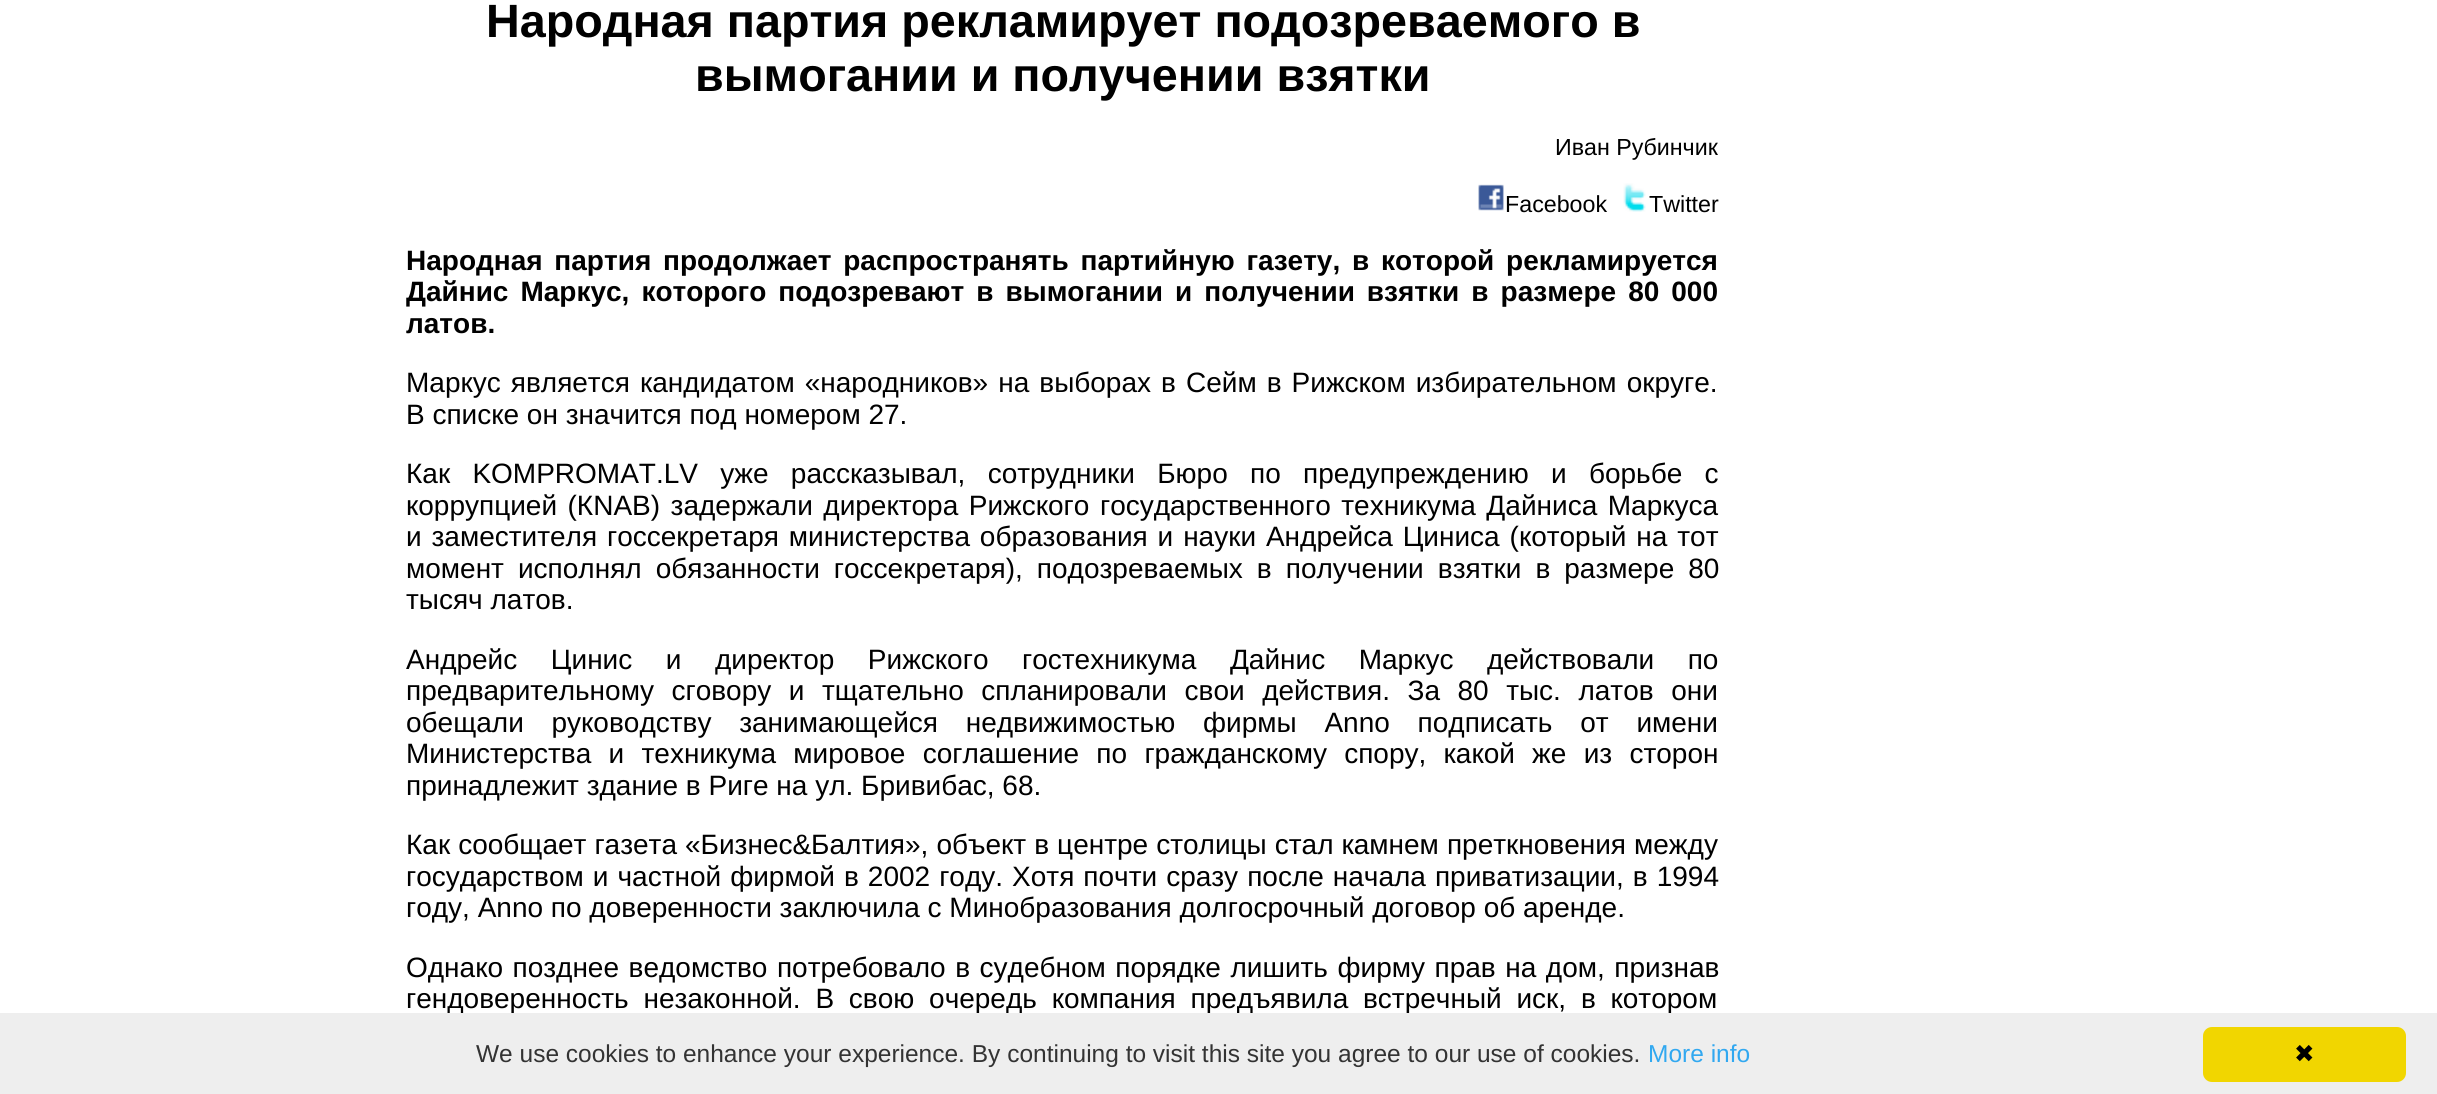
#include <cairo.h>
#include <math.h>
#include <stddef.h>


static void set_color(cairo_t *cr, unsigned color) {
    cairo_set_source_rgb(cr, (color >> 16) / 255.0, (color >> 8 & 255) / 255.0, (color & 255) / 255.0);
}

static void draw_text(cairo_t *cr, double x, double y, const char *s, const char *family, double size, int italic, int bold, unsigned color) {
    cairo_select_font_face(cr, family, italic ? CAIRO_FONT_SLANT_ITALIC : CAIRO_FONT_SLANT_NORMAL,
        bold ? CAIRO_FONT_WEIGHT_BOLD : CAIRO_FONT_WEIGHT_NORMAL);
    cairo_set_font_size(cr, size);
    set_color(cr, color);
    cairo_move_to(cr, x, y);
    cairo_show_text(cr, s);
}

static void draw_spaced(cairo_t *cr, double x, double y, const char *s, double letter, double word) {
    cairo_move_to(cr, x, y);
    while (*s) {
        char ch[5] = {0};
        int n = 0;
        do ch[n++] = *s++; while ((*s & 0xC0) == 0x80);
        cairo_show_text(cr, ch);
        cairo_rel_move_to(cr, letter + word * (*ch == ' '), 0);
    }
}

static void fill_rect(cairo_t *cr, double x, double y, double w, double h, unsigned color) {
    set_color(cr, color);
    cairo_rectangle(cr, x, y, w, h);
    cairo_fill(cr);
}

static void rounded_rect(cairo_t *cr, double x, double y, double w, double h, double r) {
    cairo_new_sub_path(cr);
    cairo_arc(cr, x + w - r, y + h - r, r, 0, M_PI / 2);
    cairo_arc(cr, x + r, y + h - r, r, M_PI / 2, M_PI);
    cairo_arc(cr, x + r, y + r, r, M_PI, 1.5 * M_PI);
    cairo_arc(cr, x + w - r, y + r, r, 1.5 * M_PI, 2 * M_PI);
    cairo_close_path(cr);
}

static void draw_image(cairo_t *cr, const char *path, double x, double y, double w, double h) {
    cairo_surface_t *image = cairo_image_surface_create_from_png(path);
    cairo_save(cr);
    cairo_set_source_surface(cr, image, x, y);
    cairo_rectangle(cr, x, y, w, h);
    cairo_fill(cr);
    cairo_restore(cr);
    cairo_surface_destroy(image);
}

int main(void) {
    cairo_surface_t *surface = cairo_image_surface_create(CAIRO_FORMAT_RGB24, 2437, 1094);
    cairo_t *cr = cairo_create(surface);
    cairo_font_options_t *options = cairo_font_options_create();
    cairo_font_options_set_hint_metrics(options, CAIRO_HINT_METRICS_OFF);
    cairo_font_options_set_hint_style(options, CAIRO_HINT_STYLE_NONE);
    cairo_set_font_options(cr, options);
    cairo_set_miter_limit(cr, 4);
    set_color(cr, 0xFFFFFF);
    cairo_paint(cr);
    draw_text(cr, 486, 37, "Народная партия рекламирует подозреваемого в", "Liberation Sans", 46.7, 0, 1, 0x000000);
    draw_text(cr, 695, 91, "вымогании и получении взятки", "Liberation Sans", 46.7, 0, 1, 0x000000);
    draw_text(cr, 1555, 155, "Иван Рубинчик", "Liberation Sans", 23.25, 0, 0, 0x000000);
    draw_image(cr, "assets/img1.png", 1478, 184, 26, 27);
    draw_text(cr, 1505, 212, "Facebook", "Liberation Sans", 23.25, 0, 0, 0x000000);
    draw_image(cr, "assets/img2.png", 1623, 183, 23, 29);
    draw_text(cr, 1649, 212, "Twitter", "Liberation Sans", 23.25, 0, 0, 0x000000);
    cairo_select_font_face(cr, "Liberation Sans", CAIRO_FONT_SLANT_NORMAL, CAIRO_FONT_WEIGHT_BOLD);
    cairo_set_font_size(cr, 28);
    draw_spaced(cr, 406, 270, "Народная партия продолжает распространять партийную газету, в которой рекламируется", 0, 4);
    draw_spaced(cr, 406, 301, "Дайнис Маркус, которого подозревают в вымогании и получении взятки в размере 80 000", 0, 4.25);
    draw_text(cr, 406, 333, "латов.", "Liberation Sans", 28, 0, 1, 0x000000);
    cairo_select_font_face(cr, "Liberation Sans", CAIRO_FONT_SLANT_NORMAL, CAIRO_FONT_WEIGHT_NORMAL);
    draw_spaced(cr, 406, 392, "Маркус является кандидатом «народников» на выборах в Сейм в Рижском избирательном округе.", 0, 2.25);
    draw_text(cr, 406, 424, "В списке он значится под номером 27.", "Liberation Sans", 28, 0, 0, 0x000000);
    draw_spaced(cr, 406, 483, "Как KOMPROMAT.LV уже рассказывал, сотрудники Бюро по предупреждению и борьбе с", 0, 14.5);
    draw_spaced(cr, 406, 515, "коррупцией (КNAB) задержали директора Рижского государственного техникума Дайниса Маркуса", 0, 2.75);
    draw_spaced(cr, 406, 546, "и заместителя госсекретаря министерства образования и науки Андрейса Циниса (который на тот", 0, 2.1);
    draw_spaced(cr, 406, 578, "момент исполнял обязанности госсекретаря), подозреваемых в получении взятки в размере 80", 0, 6.25);
    draw_text(cr, 406, 609, "тысяч латов.", "Liberation Sans", 28, 0, 0, 0x000000);
    draw_spaced(cr, 406, 669, "Андрейс Цинис и директор Рижского гостехникума Дайнис Маркус действовали по", 0, 25.75);
    draw_spaced(cr, 406, 700, "предварительному сговору и тщательно спланировали свои действия. За 80 тыс. латов они", 0, 9.75);
    draw_spaced(cr, 406, 732, "обещали руководству занимающейся недвижимостью фирмы Anno подписать от имени", 0, 20);
    draw_spaced(cr, 406, 763, "Министерства и техникума мировое соглашение по гражданскому cпору, какой же из сторон", 0, 9.5);
    draw_text(cr, 406, 795, "принадлежит здание в Риге на ул. Бривибас, 68.", "Liberation Sans", 28, 0, 0, 0x000000);
    draw_spaced(cr, 406, 854, "Как сообщает газета «Бизнес&Балтия», объект в центре столицы стал камнем преткновения между", 0, 0.25);
    draw_spaced(cr, 406, 886, "государством и частной фирмой в 2002 году. Хотя почти сразу после начала приватизации, в 1994", 0, 1.25);
    draw_text(cr, 406, 917, "году, Аnno по доверенности заключила с Минобразования долгосрочный договор об аренде.", "Liberation Sans", 28, 0, 0, 0x000000);
    draw_spaced(cr, 406, 977, "Однако позднее ведомство потребовало в судебном порядке лишить фирму прав на дом, признав", 0, 1.75);
    draw_spaced(cr, 406, 1008, "гендоверенность незаконной. В свою очередь компания предъявила встречный иск, в котором", 0, 7);
    fill_rect(cr, 0, 1013, 2437, 81, 0xEEEEEE);
    draw_text(cr, 476, 1062, "We use cookies to enhance your experience. By continuing to visit this site you agree to our use of cookies.", "Liberation Sans", 24.5, 0, 0, 0x333333);
    draw_text(cr, 1648, 1062, "More info", "Liberation Sans", 24.5, 0, 0, 0x31A8F0);
    set_color(cr, 0xF1D600);
    rounded_rect(cr, 2203, 1027, 203, 55, 9);
    cairo_fill(cr);
    draw_text(cr, 2294, 1062, "✖", "DejaVu Sans", 24.5, 0, 0, 0x000000);
    cairo_surface_write_to_png(surface, "output.png");
    cairo_font_options_destroy(options);
    cairo_destroy(cr);
    cairo_surface_destroy(surface);
    return 0;
}
